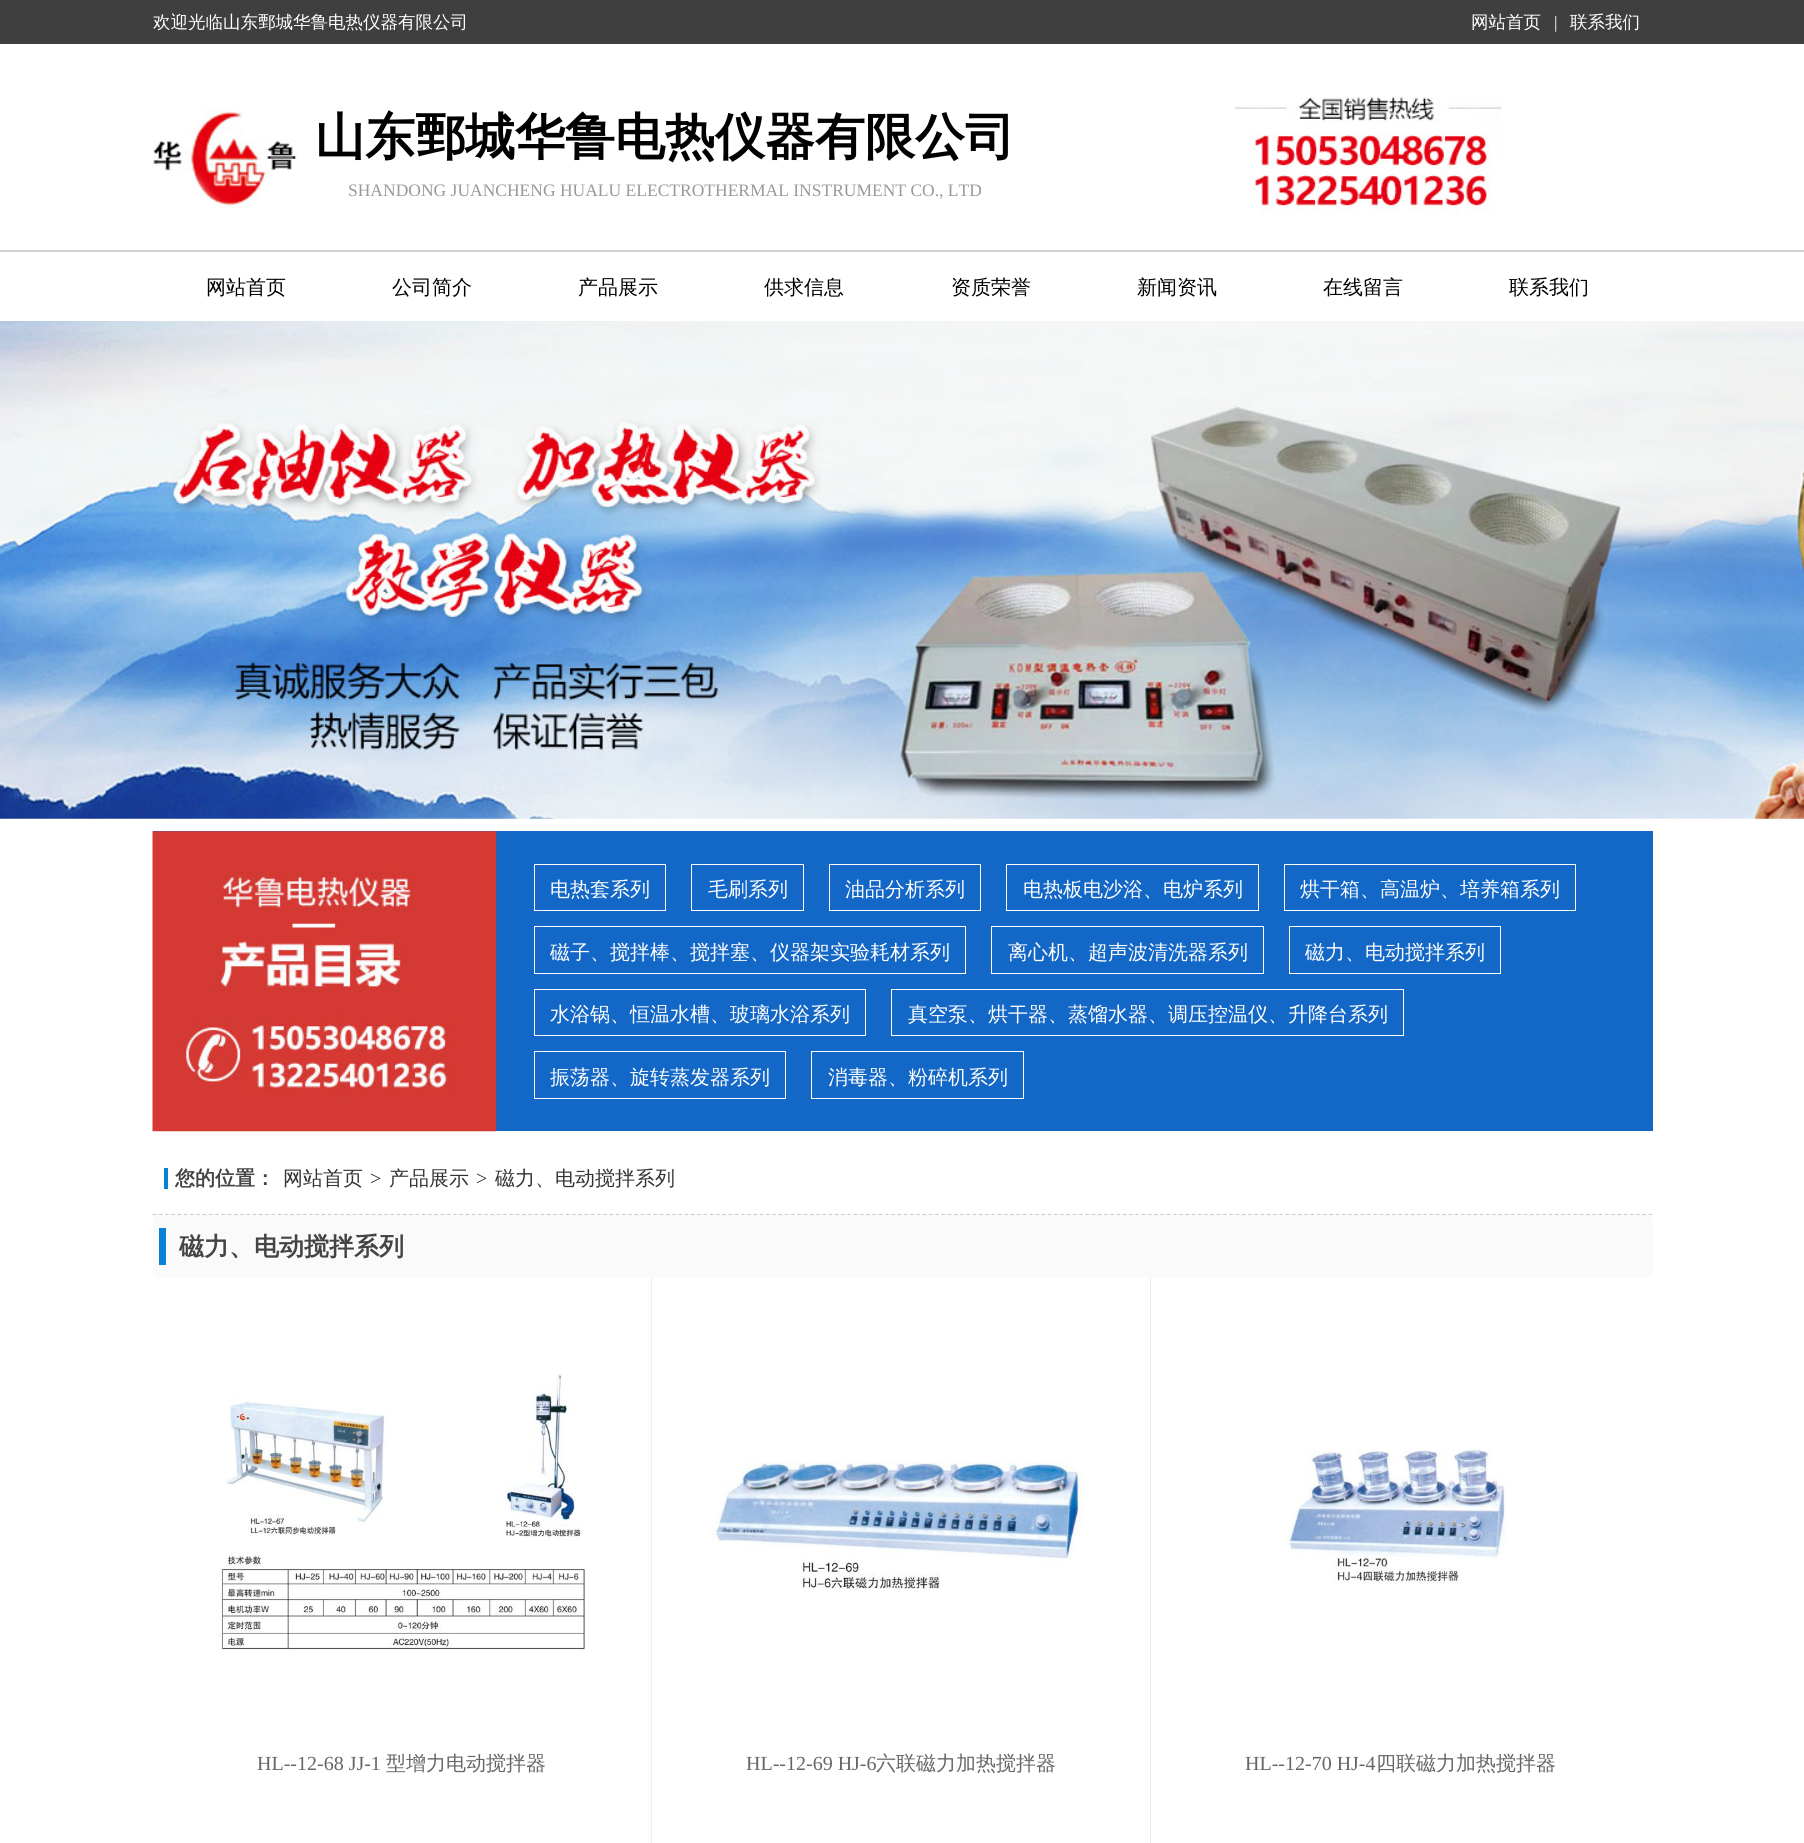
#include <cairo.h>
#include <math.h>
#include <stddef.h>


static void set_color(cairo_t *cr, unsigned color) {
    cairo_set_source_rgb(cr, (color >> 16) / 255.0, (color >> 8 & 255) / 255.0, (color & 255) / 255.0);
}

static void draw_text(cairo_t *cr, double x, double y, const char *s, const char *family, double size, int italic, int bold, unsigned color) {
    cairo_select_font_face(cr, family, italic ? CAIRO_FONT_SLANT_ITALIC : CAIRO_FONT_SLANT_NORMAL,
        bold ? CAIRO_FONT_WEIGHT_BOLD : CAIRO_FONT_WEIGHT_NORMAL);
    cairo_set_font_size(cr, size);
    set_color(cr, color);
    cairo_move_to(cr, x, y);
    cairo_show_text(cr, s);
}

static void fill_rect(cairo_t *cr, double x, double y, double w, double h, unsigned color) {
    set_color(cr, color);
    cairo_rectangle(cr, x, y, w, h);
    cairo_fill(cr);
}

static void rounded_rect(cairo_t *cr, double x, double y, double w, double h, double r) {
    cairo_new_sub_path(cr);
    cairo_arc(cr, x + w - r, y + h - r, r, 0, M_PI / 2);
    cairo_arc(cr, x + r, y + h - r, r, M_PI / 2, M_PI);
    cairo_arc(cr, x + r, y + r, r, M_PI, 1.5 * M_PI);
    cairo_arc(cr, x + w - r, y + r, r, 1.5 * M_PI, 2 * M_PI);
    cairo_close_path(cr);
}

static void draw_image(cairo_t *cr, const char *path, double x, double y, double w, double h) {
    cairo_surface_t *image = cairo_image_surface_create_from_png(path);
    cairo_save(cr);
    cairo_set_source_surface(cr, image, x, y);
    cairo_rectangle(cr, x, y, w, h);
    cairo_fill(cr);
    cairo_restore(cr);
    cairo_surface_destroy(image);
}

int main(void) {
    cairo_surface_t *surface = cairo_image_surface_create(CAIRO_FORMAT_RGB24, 1804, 1843);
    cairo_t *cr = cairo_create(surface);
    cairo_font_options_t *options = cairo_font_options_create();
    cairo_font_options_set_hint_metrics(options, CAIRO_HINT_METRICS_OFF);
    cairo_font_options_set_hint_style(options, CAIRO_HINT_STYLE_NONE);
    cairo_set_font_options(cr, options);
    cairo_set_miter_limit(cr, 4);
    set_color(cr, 0xFFFFFF);
    cairo_paint(cr);
    fill_rect(cr, 0, 0, 1804, 44, 0x3F3F3F);
    draw_text(cr, 153, 28, "欢迎光临山东鄄城华鲁电热仪器有限公司", "WenQuanYi Zen Hei Medium", 17.5, 0, 0, 0xFFFFFF);
    draw_text(cr, 1471, 28, "网站首页", "WenQuanYi Zen Hei Medium", 17.5, 0, 0, 0xFFFFFF);
    draw_text(cr, 1554, 28, "|", "Liberation Serif", 17.5, 0, 0, 0xFFFFFF);
    draw_text(cr, 1570, 28, "联系我们", "WenQuanYi Zen Hei Medium", 17.5, 0, 0, 0xFFFFFF);
    draw_image(cr, "assets/img1.png", 153, 110, 144, 99);
    draw_text(cr, 315, 154, "山东鄄城华鲁电热仪器有限公司", "WenQuanYi Zen Hei", 50, 0, 1, 0x000000);
    draw_text(cr, 348, 196, "SHANDONG JUANCHENG HUALU ELECTROTHERMAL INSTRUMENT CO., LTD", "Liberation Serif", 17.5, 0, 0, 0x999999);
    draw_image(cr, "assets/img2.png", 1234, 97, 268, 117);
    fill_rect(cr, 0, 250, 1804, 2, 0xD1D1D1);
    draw_text(cr, 206, 294, "网站首页", "WenQuanYi Zen Hei Medium", 20, 0, 0, 0x000000);
    draw_text(cr, 392, 294, "公司简介", "WenQuanYi Zen Hei Medium", 20, 0, 0, 0x000000);
    draw_text(cr, 578, 294, "产品展示", "WenQuanYi Zen Hei Medium", 20, 0, 0, 0x000000);
    draw_text(cr, 764, 294, "供求信息", "WenQuanYi Zen Hei Medium", 20, 0, 0, 0x000000);
    draw_text(cr, 951, 294, "资质荣誉", "WenQuanYi Zen Hei Medium", 20, 0, 0, 0x000000);
    draw_text(cr, 1137, 294, "新闻资讯", "WenQuanYi Zen Hei Medium", 20, 0, 0, 0x000000);
    draw_text(cr, 1323, 294, "在线留言", "WenQuanYi Zen Hei Medium", 20, 0, 0, 0x000000);
    draw_text(cr, 1509, 294, "联系我们", "WenQuanYi Zen Hei Medium", 20, 0, 0, 0x000000);
    draw_image(cr, "assets/img3.png", 0, 321, 1804, 498);
    fill_rect(cr, 153, 831, 1500, 300, 0x1367C6);
    draw_image(cr, "assets/img4.png", 152, 831, 345, 301);
    cairo_rectangle(cr, 534.5, 864.5, 131, 46);
    set_color(cr, 0xFFFFFF);
    cairo_set_line_width(cr, 1);
    cairo_stroke(cr);
    draw_text(cr, 550, 896, "电热套系列", "WenQuanYi Zen Hei Medium", 20, 0, 0, 0xFFFFFF);
    cairo_rectangle(cr, 691.5, 864.5, 112, 46);
    cairo_stroke(cr);
    draw_text(cr, 708, 896, "毛刷系列", "WenQuanYi Zen Hei Medium", 20, 0, 0, 0xFFFFFF);
    cairo_rectangle(cr, 829.5, 864.5, 151, 46);
    cairo_stroke(cr);
    draw_text(cr, 845, 896, "油品分析系列", "WenQuanYi Zen Hei Medium", 20, 0, 0, 0xFFFFFF);
    cairo_rectangle(cr, 1006.5, 864.5, 252, 46);
    cairo_stroke(cr);
    draw_text(cr, 1023, 896, "电热板电沙浴、电炉系列", "WenQuanYi Zen Hei Medium", 20, 0, 0, 0xFFFFFF);
    cairo_rectangle(cr, 1284.5, 864.5, 291, 46);
    cairo_stroke(cr);
    draw_text(cr, 1300, 896, "烘干箱、高温炉、培养箱系列", "WenQuanYi Zen Hei Medium", 20, 0, 0, 0xFFFFFF);
    cairo_rectangle(cr, 534.5, 926.5, 431, 47);
    cairo_stroke(cr);
    draw_text(cr, 550, 959, "磁子、搅拌棒、搅拌塞、仪器架实验耗材系列", "WenQuanYi Zen Hei Medium", 20, 0, 0, 0xFFFFFF);
    cairo_rectangle(cr, 991.5, 926.5, 272, 47);
    cairo_stroke(cr);
    draw_text(cr, 1008, 959, "离心机、超声波清洗器系列", "WenQuanYi Zen Hei Medium", 20, 0, 0, 0xFFFFFF);
    cairo_rectangle(cr, 1289.5, 926.5, 211, 47);
    cairo_stroke(cr);
    draw_text(cr, 1305, 959, "磁力、电动搅拌系列", "WenQuanYi Zen Hei Medium", 20, 0, 0, 0xFFFFFF);
    cairo_rectangle(cr, 534.5, 989.5, 331, 46);
    cairo_stroke(cr);
    draw_text(cr, 550, 1021, "水浴锅、恒温水槽、玻璃水浴系列", "WenQuanYi Zen Hei Medium", 20, 0, 0, 0xFFFFFF);
    cairo_rectangle(cr, 891.5, 989.5, 512, 46);
    cairo_stroke(cr);
    draw_text(cr, 908, 1021, "真空泵、烘干器、蒸馏水器、调压控温仪、升降台系列", "WenQuanYi Zen Hei Medium", 20, 0, 0, 0xFFFFFF);
    cairo_rectangle(cr, 534.5, 1051.5, 251, 47);
    cairo_stroke(cr);
    draw_text(cr, 550, 1084, "振荡器、旋转蒸发器系列", "WenQuanYi Zen Hei Medium", 20, 0, 0, 0xFFFFFF);
    cairo_rectangle(cr, 811.5, 1051.5, 212, 47);
    cairo_stroke(cr);
    draw_text(cr, 828, 1084, "消毒器、粉碎机系列", "WenQuanYi Zen Hei Medium", 20, 0, 0, 0xFFFFFF);
    cairo_new_path(cr);
    cairo_move_to(cr, 152.5, 1214.5);
    cairo_line_to(cr, 1652.5, 1214.5);
    set_color(cr, 0xCCCCCC);
    cairo_set_line_width(cr, 1.2);
    cairo_set_dash(cr, (double[]){3.75, 2.51}, 2, 0);
    cairo_stroke(cr);
    draw_text(cr, 175, 1185, "您的位置：", "WenQuanYi Zen Hei", 20, 0, 1, 0x444444);
    fill_rect(cr, 164, 1168, 4, 21, 0x0A80D7);
    draw_text(cr, 283, 1185, "网站首页", "WenQuanYi Zen Hei Medium", 20, 0, 0, 0x333333);
    draw_text(cr, 370, 1185, ">", "Liberation Serif", 20, 0, 0, 0x333333);
    draw_text(cr, 389, 1185, "产品展示", "WenQuanYi Zen Hei Medium", 20, 0, 0, 0x333333);
    draw_text(cr, 476, 1185, ">", "Liberation Serif", 20, 0, 0, 0x333333);
    draw_text(cr, 495, 1185, "磁力、电动搅拌系列", "WenQuanYi Zen Hei Medium", 20, 0, 0, 0x333333);
    set_color(cr, 0xFAFAFA);
    rounded_rect(cr, 153, 1215, 1500, 63, 6);
    cairo_fill(cr);
    fill_rect(cr, 159, 1228, 7, 37, 0x0A80D7);
    draw_text(cr, 179, 1255, "磁力、电动搅拌系列", "WenQuanYi Zen Hei", 25, 0, 1, 0x444444);
    draw_image(cr, "assets/img5.png", 219, 1373, 366, 280);
    draw_text(cr, 257, 1770, "HL--12-68 JJ-1", "Liberation Serif", 20, 0, 0, 0x666666);
    draw_text(cr, 386, 1770, "型增力电动搅拌器", "WenQuanYi Zen Hei Medium", 20, 0, 0, 0x666666);
    fill_rect(cr, 651, 1278, 1, 565, 0xEEEEEE);
    draw_image(cr, "assets/img6.png", 712, 1461, 372, 128);
    draw_text(cr, 746, 1770, "HL--12-69 HJ-6", "Liberation Serif", 20, 0, 0, 0x666666);
    draw_text(cr, 876, 1770, "六联磁力加热搅拌器", "WenQuanYi Zen Hei Medium", 20, 0, 0, 0x666666);
    fill_rect(cr, 1150, 1278, 1, 565, 0xEEEEEE);
    draw_image(cr, "assets/img7.png", 1287, 1448, 221, 136);
    draw_text(cr, 1245, 1770, "HL--12-70 HJ-4", "Liberation Serif", 20, 0, 0, 0x666666);
    draw_text(cr, 1376, 1770, "四联磁力加热搅拌器", "WenQuanYi Zen Hei Medium", 20, 0, 0, 0x666666);
    cairo_surface_write_to_png(surface, "output.png");
    cairo_font_options_destroy(options);
    cairo_destroy(cr);
    cairo_surface_destroy(surface);
    return 0;
}
